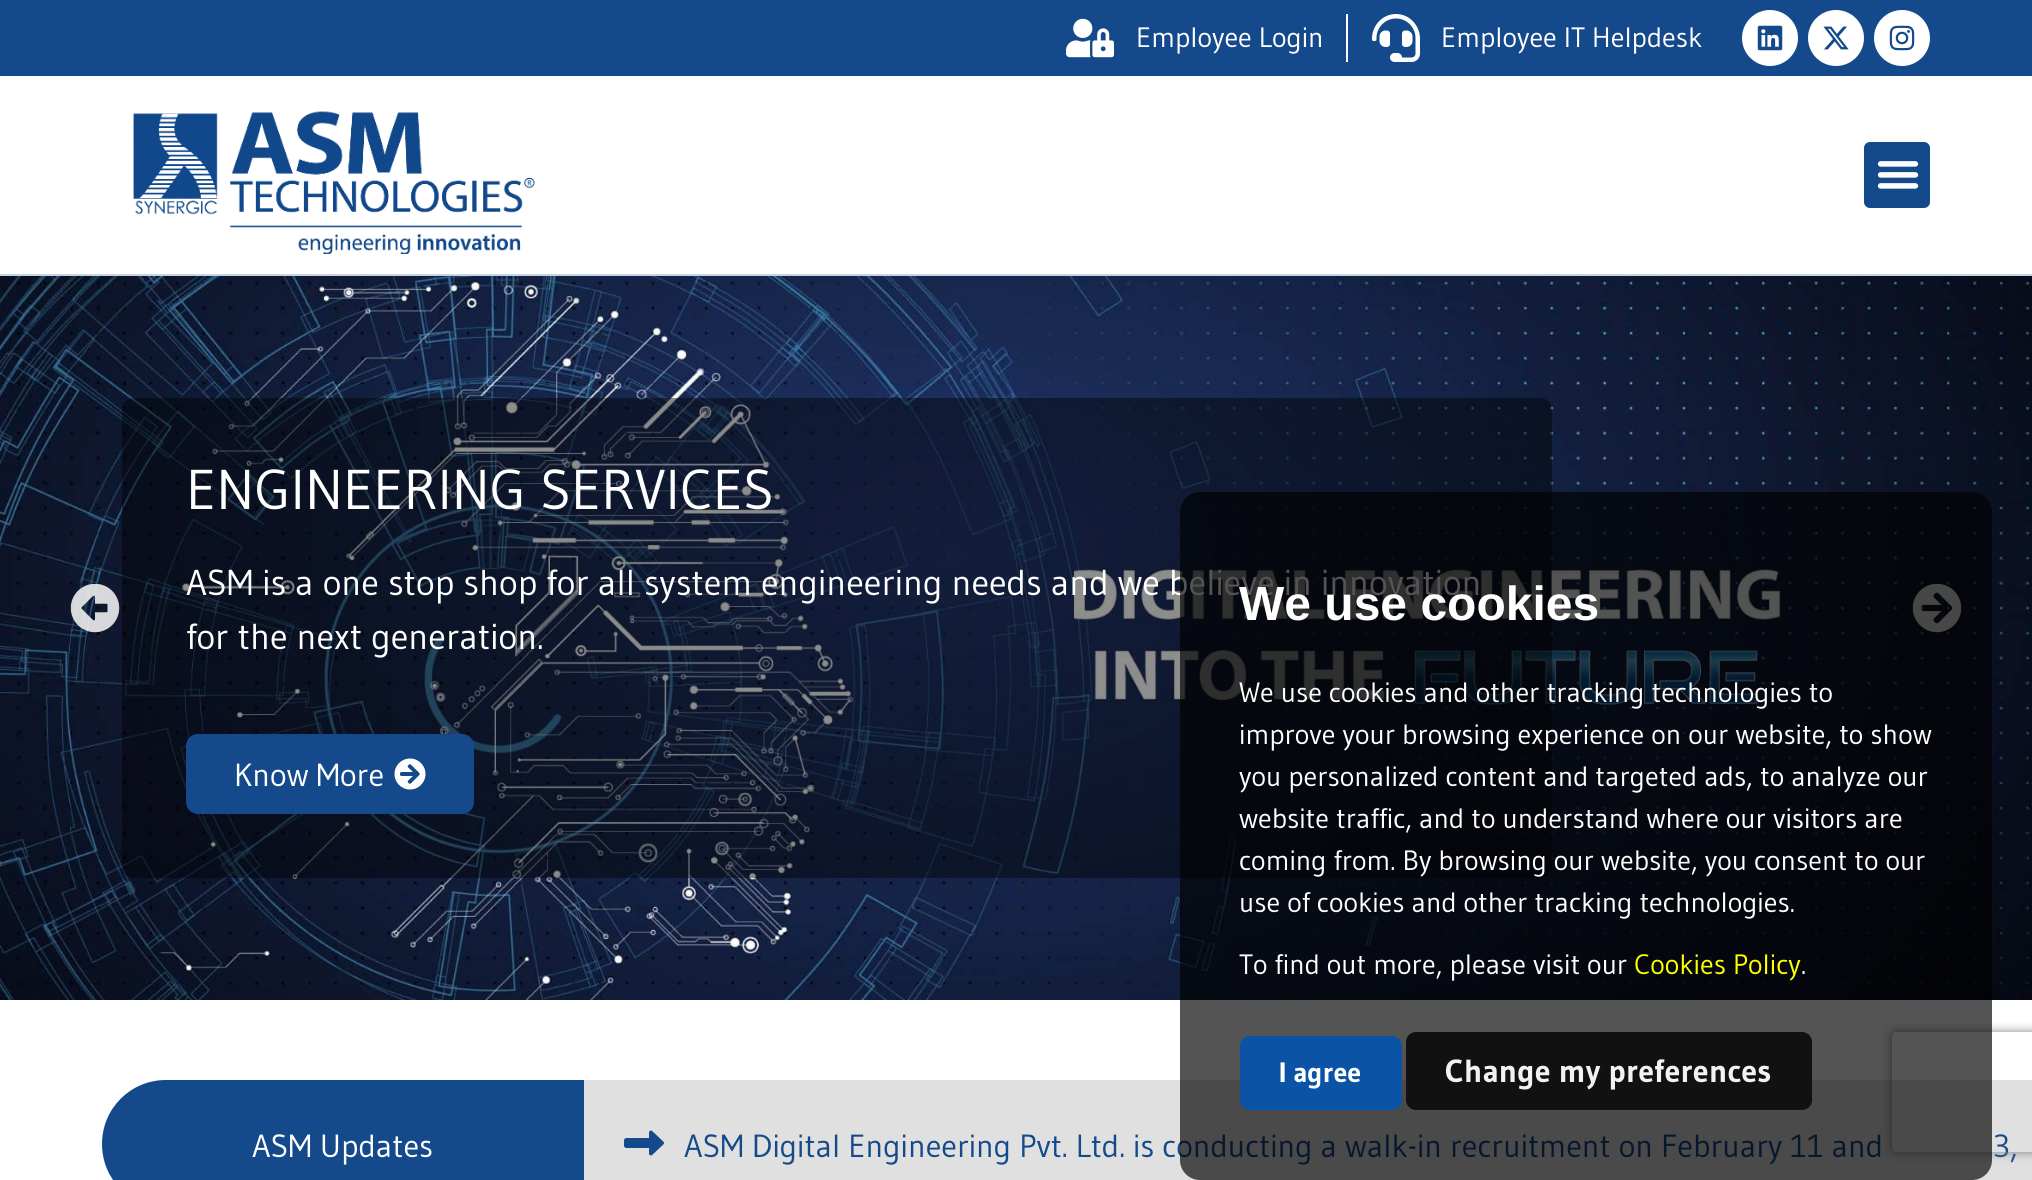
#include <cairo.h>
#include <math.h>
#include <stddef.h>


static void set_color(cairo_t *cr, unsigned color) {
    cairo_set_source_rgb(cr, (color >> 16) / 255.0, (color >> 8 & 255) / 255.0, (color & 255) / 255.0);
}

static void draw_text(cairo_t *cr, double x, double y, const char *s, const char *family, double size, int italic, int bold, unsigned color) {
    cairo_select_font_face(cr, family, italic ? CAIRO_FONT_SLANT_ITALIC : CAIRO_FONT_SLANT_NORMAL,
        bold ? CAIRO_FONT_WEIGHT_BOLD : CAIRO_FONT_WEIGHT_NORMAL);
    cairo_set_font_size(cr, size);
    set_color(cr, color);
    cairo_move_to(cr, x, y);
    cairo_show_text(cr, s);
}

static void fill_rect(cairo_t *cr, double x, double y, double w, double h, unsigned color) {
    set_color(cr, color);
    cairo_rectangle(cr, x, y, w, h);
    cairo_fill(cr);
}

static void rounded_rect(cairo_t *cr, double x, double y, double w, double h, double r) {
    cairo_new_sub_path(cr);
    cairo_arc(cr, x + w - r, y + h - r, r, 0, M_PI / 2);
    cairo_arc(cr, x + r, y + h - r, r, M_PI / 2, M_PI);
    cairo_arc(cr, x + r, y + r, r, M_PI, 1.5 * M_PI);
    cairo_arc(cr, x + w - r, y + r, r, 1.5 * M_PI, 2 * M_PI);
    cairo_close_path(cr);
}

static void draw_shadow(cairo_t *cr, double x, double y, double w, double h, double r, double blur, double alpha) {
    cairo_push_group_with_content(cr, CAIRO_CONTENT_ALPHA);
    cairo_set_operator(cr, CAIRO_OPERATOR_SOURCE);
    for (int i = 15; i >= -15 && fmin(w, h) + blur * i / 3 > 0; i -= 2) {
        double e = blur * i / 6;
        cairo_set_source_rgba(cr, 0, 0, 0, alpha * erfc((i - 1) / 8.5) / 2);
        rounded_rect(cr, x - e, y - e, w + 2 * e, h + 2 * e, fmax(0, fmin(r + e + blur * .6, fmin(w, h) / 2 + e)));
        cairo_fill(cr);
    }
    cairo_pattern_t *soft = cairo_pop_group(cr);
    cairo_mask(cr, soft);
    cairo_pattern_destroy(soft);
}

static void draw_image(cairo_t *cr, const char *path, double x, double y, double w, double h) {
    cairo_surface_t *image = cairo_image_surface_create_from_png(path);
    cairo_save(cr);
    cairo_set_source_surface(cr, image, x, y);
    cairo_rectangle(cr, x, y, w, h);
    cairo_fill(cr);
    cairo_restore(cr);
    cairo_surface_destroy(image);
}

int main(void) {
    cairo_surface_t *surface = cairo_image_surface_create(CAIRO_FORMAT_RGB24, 2032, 1180);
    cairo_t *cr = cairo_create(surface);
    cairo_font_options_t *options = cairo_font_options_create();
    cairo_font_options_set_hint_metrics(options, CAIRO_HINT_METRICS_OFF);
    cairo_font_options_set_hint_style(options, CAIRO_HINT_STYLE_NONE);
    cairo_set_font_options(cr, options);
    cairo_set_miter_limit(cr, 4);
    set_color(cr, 0xFFFFFF);
    cairo_paint(cr);
    fill_rect(cr, 0, 0, 2032, 76, 0x144A8B);
    draw_image(cr, "assets/img1.png", 1066, 18, 48, 40);
    draw_text(cr, 1136, 47, "Employee Login", "Gudea", 28, 0, 0, 0xFFFFFF);
    fill_rect(cr, 1346, 14, 2, 48, 0xFFFFFF);
    draw_image(cr, "assets/img2.png", 1372, 14, 48, 48);
    draw_text(cr, 1441, 47, "Employee IT Helpdesk", "Gudea", 28, 0, 0, 0xFFFFFF);
    cairo_new_path(cr);
    cairo_arc(cr, 1770, 38, 28, 0, 2 * M_PI);
    cairo_fill(cr);
    draw_image(cr, "assets/img3.png", 1757, 25, 26, 26);
    cairo_arc(cr, 1836, 38, 28, 0, 2 * M_PI);
    cairo_fill(cr);
    draw_image(cr, "assets/img4.png", 1823, 26, 26, 24);
    cairo_arc(cr, 1902, 38, 28, 0, 2 * M_PI);
    cairo_fill(cr);
    draw_image(cr, "assets/img5.png", 1889, 25, 26, 26);
    fill_rect(cr, 0, 274, 2032, 2, 0xC7D4E3);
    draw_image(cr, "assets/img6.png", 133, 111, 402, 143);
    set_color(cr, 0x144A8B);
    rounded_rect(cr, 1864, 142, 66, 66, 6);
    cairo_fill(cr);
    draw_image(cr, "assets/img7.png", 1877, 161, 42, 28);
    draw_image(cr, "assets/img9.png", 0, 276, 2032, 724);
    draw_image(cr, "assets/img8.png", 70, 584, 50, 49);
    cairo_set_source_rgba(cr, 0, 0, 0, 0.44);
    rounded_rect(cr, 122, 398, 1430, 480, 12);
    cairo_fill(cr);
    draw_text(cr, 186, 509, "ENGINEERING SERVICES", "Gudea", 56, 0, 0, 0xFFFFFF);
    draw_text(cr, 186, 595, "ASM is a one stop shop for all system engineering needs and we believe in innovation", "Gudea", 36, 0, 0, 0xFFFFFF);
    draw_text(cr, 186, 649, "for the next generation.", "Gudea", 36, 0, 0, 0xFFFFFF);
    set_color(cr, 0x144A8B);
    rounded_rect(cr, 186, 734, 288, 80, 12);
    cairo_fill(cr);
    draw_text(cr, 234, 786, "Know More", "Gudea", 32, 0, 0, 0xFFFFFF);
    draw_image(cr, "assets/img10.png", 394, 758, 32, 32);
    draw_image(cr, "assets/img11.png", 1912, 584, 50, 49);
    set_color(cr, 0x144A8B);
    cairo_new_path(cr);
    cairo_move_to(cr, 166, 1080);
    cairo_line_to(cr, 584, 1080);
    cairo_line_to(cr, 584, 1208);
    cairo_line_to(cr, 166, 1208);
    cairo_curve_to(cr, 130.5, 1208, 102, 1179.5, 102, 1144);
    cairo_curve_to(cr, 102, 1108.5, 130.5, 1080, 166, 1080);
    cairo_close_path(cr);
    cairo_fill(cr);
    draw_text(cr, 252, 1157, "ASM Updates", "Gudea", 32, 0, 0, 0xFFFFFF);
    fill_rect(cr, 584, 1080, 1448, 100, 0xE0E0E0);
    draw_image(cr, "assets/img12.png", 624, 1130, 40, 26);
    draw_text(cr, 684, 1157, "ASM Digital Engineering Pvt. Ltd. is conducting a walk-in recruitment on February 11 and", "Gudea", 32, 0, 0, 0x144A8B);
    draw_text(cr, 1993, 1157, "3,", "Gudea", 32, 0, 0, 0x144A8B);
    cairo_save(cr);
    cairo_set_fill_rule(cr, CAIRO_FILL_RULE_EVEN_ODD);
    cairo_new_path(cr);
    cairo_move_to(cr, 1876, 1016);
    cairo_line_to(cr, 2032, 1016);
    cairo_line_to(cr, 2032, 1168);
    cairo_line_to(cr, 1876, 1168);
    cairo_close_path(cr);
    cairo_move_to(cr, 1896, 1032);
    cairo_line_to(cr, 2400, 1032);
    cairo_curve_to(cr, 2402, 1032, 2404, 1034, 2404, 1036);
    cairo_line_to(cr, 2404, 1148);
    cairo_curve_to(cr, 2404, 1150, 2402, 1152, 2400, 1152);
    cairo_line_to(cr, 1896, 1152);
    cairo_curve_to(cr, 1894, 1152, 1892, 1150, 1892, 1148);
    cairo_line_to(cr, 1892, 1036);
    cairo_curve_to(cr, 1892, 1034, 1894, 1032, 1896, 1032);
    cairo_close_path(cr);
    cairo_clip(cr);
    set_color(cr, 0x808080);
    draw_shadow(cr, 1892, 1032, 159, 120, 4, 5, 1);
    cairo_restore(cr);
    cairo_set_source_rgba(cr, 0, 0, 0, 0.67);
    rounded_rect(cr, 1180, 492, 812, 688, 20);
    cairo_fill(cr);
    draw_text(cr, 1239, 620, "We use cookies", "Liberation Sans", 48, 0, 1, 0xFFFFFF);
    draw_text(cr, 1239, 702, "We use cookies and other tracking technologies to", "Gudea", 28, 0, 0, 0xFFFFFF);
    draw_text(cr, 1239, 744, "improve your browsing experience on our website, to show", "Gudea", 28, 0, 0, 0xFFFFFF);
    draw_text(cr, 1239, 786, "you personalized content and targeted ads, to analyze our", "Gudea", 28, 0, 0, 0xFFFFFF);
    draw_text(cr, 1239, 828, "website traffic, and to understand where our visitors are", "Gudea", 28, 0, 0, 0xFFFFFF);
    draw_text(cr, 1239, 870, "coming from. By browsing our website, you consent to our", "Gudea", 28, 0, 0, 0xFFFFFF);
    draw_text(cr, 1239, 912, "use of cookies and other tracking technologies.", "Gudea", 28, 0, 0, 0xFFFFFF);
    draw_text(cr, 1239, 974, "To find out more, please visit our", "Gudea", 28, 0, 0, 0xFFFFFF);
    draw_text(cr, 1634, 974, "Cookies Policy", "Gudea", 28, 0, 0, 0xFFFF00);
    draw_text(cr, 1801, 974, ".", "Gudea", 28, 0, 0, 0xFFFFFF);
    set_color(cr, 0x0B53A4);
    rounded_rect(cr, 1240, 1036, 162, 74, 10);
    cairo_fill(cr);
    draw_text(cr, 1279, 1082, "I agree", "Gudea", 28, 0, 1, 0xFFFFFF);
    set_color(cr, 0x111111);
    rounded_rect(cr, 1406, 1032, 406, 78, 10);
    cairo_fill(cr);
    draw_text(cr, 1445, 1082, "Change my preferences", "Gudea", 32, 0, 1, 0xF2F2F2);
    cairo_surface_write_to_png(surface, "output.png");
    cairo_font_options_destroy(options);
    cairo_destroy(cr);
    cairo_surface_destroy(surface);
    return 0;
}
